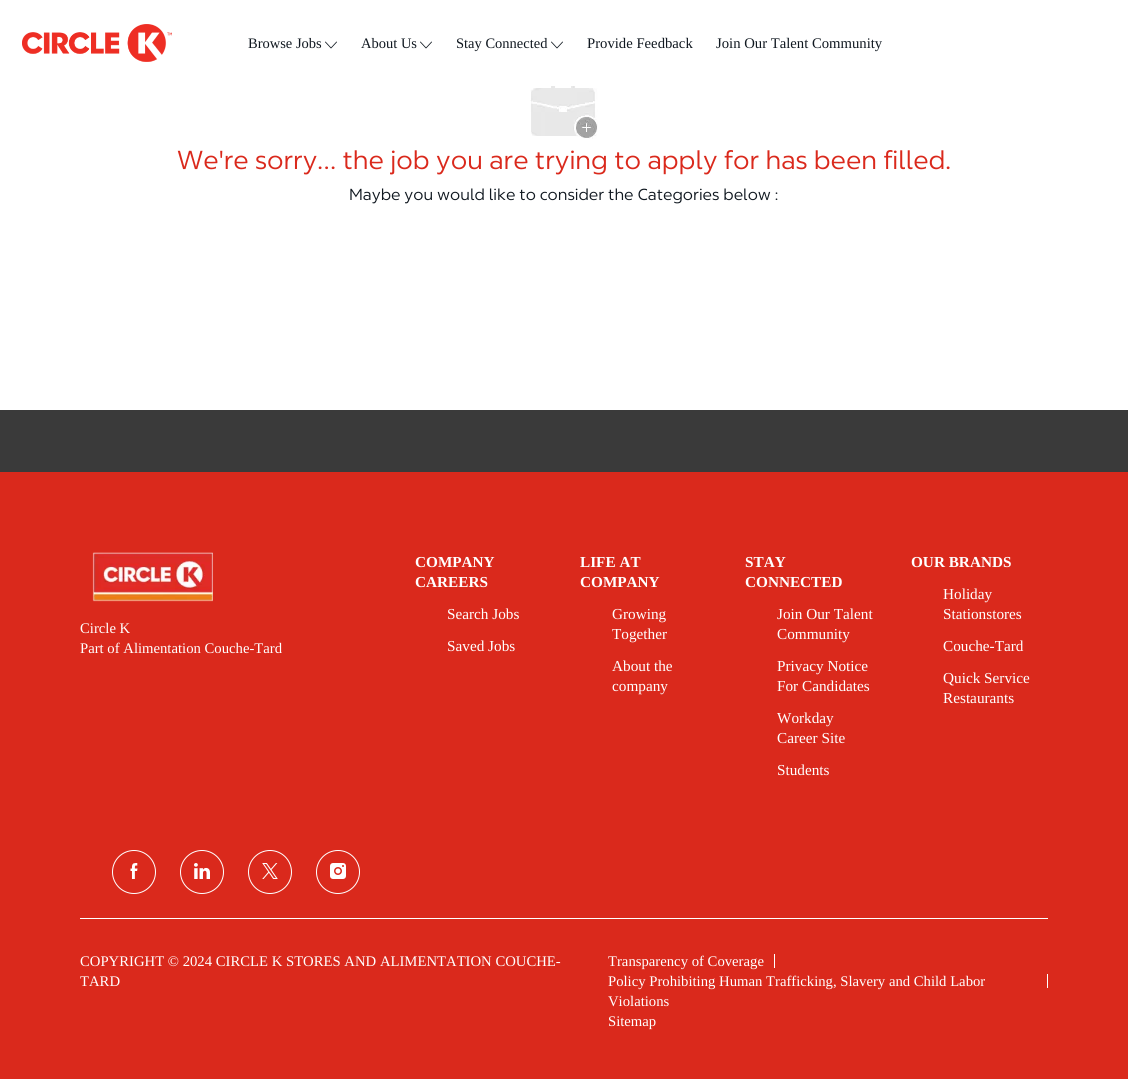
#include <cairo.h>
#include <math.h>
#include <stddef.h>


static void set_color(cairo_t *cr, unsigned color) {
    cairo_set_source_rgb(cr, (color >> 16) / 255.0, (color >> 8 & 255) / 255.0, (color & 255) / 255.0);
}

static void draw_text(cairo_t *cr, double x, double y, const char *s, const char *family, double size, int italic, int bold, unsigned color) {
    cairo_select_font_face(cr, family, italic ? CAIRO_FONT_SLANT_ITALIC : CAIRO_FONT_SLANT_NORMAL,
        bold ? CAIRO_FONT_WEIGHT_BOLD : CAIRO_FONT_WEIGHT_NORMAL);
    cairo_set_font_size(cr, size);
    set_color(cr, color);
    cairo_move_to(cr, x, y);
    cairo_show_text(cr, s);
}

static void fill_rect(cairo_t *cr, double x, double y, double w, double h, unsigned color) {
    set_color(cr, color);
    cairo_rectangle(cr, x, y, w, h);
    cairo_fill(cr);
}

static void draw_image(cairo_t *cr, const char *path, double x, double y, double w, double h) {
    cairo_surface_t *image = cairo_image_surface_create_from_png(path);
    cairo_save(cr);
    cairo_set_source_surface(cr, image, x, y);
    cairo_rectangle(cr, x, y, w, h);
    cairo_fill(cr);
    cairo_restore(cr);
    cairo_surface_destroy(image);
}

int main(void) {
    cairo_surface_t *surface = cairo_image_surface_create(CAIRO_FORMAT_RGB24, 1128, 1079);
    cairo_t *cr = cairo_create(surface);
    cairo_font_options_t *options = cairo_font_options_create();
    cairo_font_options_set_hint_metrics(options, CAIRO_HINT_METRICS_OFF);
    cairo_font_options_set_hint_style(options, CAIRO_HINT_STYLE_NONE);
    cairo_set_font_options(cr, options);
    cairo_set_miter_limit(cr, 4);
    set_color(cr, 0xFFFFFF);
    cairo_paint(cr);
    draw_image(cr, "assets/img1.png", 22, 24, 150, 38);
    draw_text(cr, 248, 48, "Browse Jobs", "Liberation Serif", 14.5, 0, 0, 0x101820);
    draw_image(cr, "assets/img2.png", 325, 41, 12, 8);
    draw_text(cr, 361, 48, "About Us", "Liberation Serif", 14.5, 0, 0, 0x101820);
    draw_image(cr, "assets/img2.png", 420, 41, 12, 8);
    draw_text(cr, 456, 48, "Stay Connected", "Liberation Serif", 14.5, 0, 0, 0x101820);
    draw_image(cr, "assets/img2.png", 551, 41, 12, 8);
    draw_text(cr, 587, 48, "Provide Feedback", "Liberation Serif", 14.7, 0, 0, 0x101820);
    draw_text(cr, 716, 48, "Join Our Talent Community", "Liberation Serif", 14.7, 0, 0, 0x101820);
    draw_image(cr, "assets/img3.png", 530, 86, 68, 53);
    draw_text(cr, 177, 169, "We're sorry… the job you are trying to apply for has been filled.", "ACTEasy", 26, 0, 0, 0xDA291C);
    draw_text(cr, 349, 200, "Maybe you would like to consider the Categories below :", "ACTEasy", 16, 0, 0, 0x101820);
    fill_rect(cr, 0, 410, 1128, 62, 0x3A3A3A);
    fill_rect(cr, 0, 472, 1128, 607, 0xDA291C);
    draw_image(cr, "assets/img4.png", 92, 552, 124, 50);
    draw_text(cr, 80, 633, "Circle K", "Liberation Serif", 14.7, 0, 0, 0xFFFFFF);
    draw_text(cr, 80, 653, "Part of Alimentation Couche-Tard", "Liberation Serif", 14.7, 0, 0, 0xFFFFFF);
    draw_text(cr, 415, 567, "COMPANY", "Liberation Serif", 15.25, 0, 1, 0xFFFFFF);
    draw_text(cr, 415, 587, "CAREERS", "Liberation Serif", 15.25, 0, 1, 0xFFFFFF);
    draw_text(cr, 447, 619, "Search Jobs", "Liberation Serif", 15.25, 0, 0, 0xFFFFFF);
    draw_text(cr, 447, 651, "Saved Jobs", "Liberation Serif", 15.25, 0, 0, 0xFFFFFF);
    draw_text(cr, 580, 567, "LIFE AT", "Liberation Serif", 15.25, 0, 1, 0xFFFFFF);
    draw_text(cr, 580, 587, "COMPANY", "Liberation Serif", 15.25, 0, 1, 0xFFFFFF);
    draw_text(cr, 612, 619, "Growing", "Liberation Serif", 15.25, 0, 0, 0xFFFFFF);
    draw_text(cr, 612, 639, "Together", "Liberation Serif", 15.25, 0, 0, 0xFFFFFF);
    draw_text(cr, 612, 671, "About the", "Liberation Serif", 15.25, 0, 0, 0xFFFFFF);
    draw_text(cr, 612, 691, "company", "Liberation Serif", 15.25, 0, 0, 0xFFFFFF);
    draw_text(cr, 745, 567, "STAY", "Liberation Serif", 15.25, 0, 1, 0xFFFFFF);
    draw_text(cr, 745, 587, "CONNECTED", "Liberation Serif", 15.25, 0, 1, 0xFFFFFF);
    draw_text(cr, 777, 619, "Join Our Talent", "Liberation Serif", 15.25, 0, 0, 0xFFFFFF);
    draw_text(cr, 777, 639, "Community", "Liberation Serif", 15.25, 0, 0, 0xFFFFFF);
    draw_text(cr, 777, 671, "Privacy Notice", "Liberation Serif", 15.25, 0, 0, 0xFFFFFF);
    draw_text(cr, 777, 691, "For Candidates", "Liberation Serif", 15.25, 0, 0, 0xFFFFFF);
    draw_text(cr, 777, 723, "Workday", "Liberation Serif", 15.25, 0, 0, 0xFFFFFF);
    draw_text(cr, 777, 743, "Career Site", "Liberation Serif", 15.25, 0, 0, 0xFFFFFF);
    draw_text(cr, 777, 775, "Students", "Liberation Serif", 15.25, 0, 0, 0xFFFFFF);
    draw_text(cr, 911, 567, "OUR BRANDS", "Liberation Serif", 15.25, 0, 1, 0xFFFFFF);
    draw_text(cr, 943, 599, "Holiday", "Liberation Serif", 15.25, 0, 0, 0xFFFFFF);
    draw_text(cr, 943, 619, "Stationstores", "Liberation Serif", 15.25, 0, 0, 0xFFFFFF);
    draw_text(cr, 943, 651, "Couche-Tard", "Liberation Serif", 15.25, 0, 0, 0xFFFFFF);
    draw_text(cr, 943, 683, "Quick Service", "Liberation Serif", 15.25, 0, 0, 0xFFFFFF);
    draw_text(cr, 943, 703, "Restaurants", "Liberation Serif", 15.25, 0, 0, 0xFFFFFF);
    cairo_new_path(cr);
    cairo_arc(cr, 134, 872, 21.5, 0, 2 * M_PI);
    cairo_set_line_width(cr, 1);
    cairo_stroke(cr);
    draw_image(cr, "assets/img5.png", 130, 863, 8, 16);
    cairo_arc(cr, 202, 872, 21.5, 0, 2 * M_PI);
    cairo_stroke(cr);
    draw_image(cr, "assets/img6.png", 194, 863, 16, 16);
    cairo_arc(cr, 270, 872, 21.5, 0, 2 * M_PI);
    cairo_stroke(cr);
    draw_image(cr, "assets/img7.png", 262, 863, 16, 16);
    cairo_arc(cr, 338, 872, 21.5, 0, 2 * M_PI);
    cairo_stroke(cr);
    draw_image(cr, "assets/img8.png", 330, 863, 16, 16);
    fill_rect(cr, 80, 918, 968, 1, 0xFFFFFF);
    draw_text(cr, 80, 966, "COPYRIGHT © 2024 CIRCLE K STORES AND ALIMENTATION COUCHE-", "Liberation Serif", 14.7, 0, 0, 0xFFFFFF);
    draw_text(cr, 80, 986, "TARD", "Liberation Serif", 14.7, 0, 0, 0xFFFFFF);
    draw_text(cr, 608, 966, "Transparency of Coverage", "Liberation Serif", 14.7, 0, 0, 0xFFFFFF);
    fill_rect(cr, 774, 954, 1, 14, 0xFFFFFF);
    draw_text(cr, 608, 986, "Policy Prohibiting Human Trafficking, Slavery and Child Labor", "Liberation Serif", 14.7, 0, 0, 0xFFFFFF);
    fill_rect(cr, 1047, 974, 1, 14, 0xFFFFFF);
    draw_text(cr, 608, 1006, "Violations", "Liberation Serif", 14.7, 0, 0, 0xFFFFFF);
    draw_text(cr, 608, 1026, "Sitemap", "Liberation Serif", 14.7, 0, 0, 0xFFFFFF);
    cairo_surface_write_to_png(surface, "output.png");
    cairo_font_options_destroy(options);
    cairo_destroy(cr);
    cairo_surface_destroy(surface);
    return 0;
}
